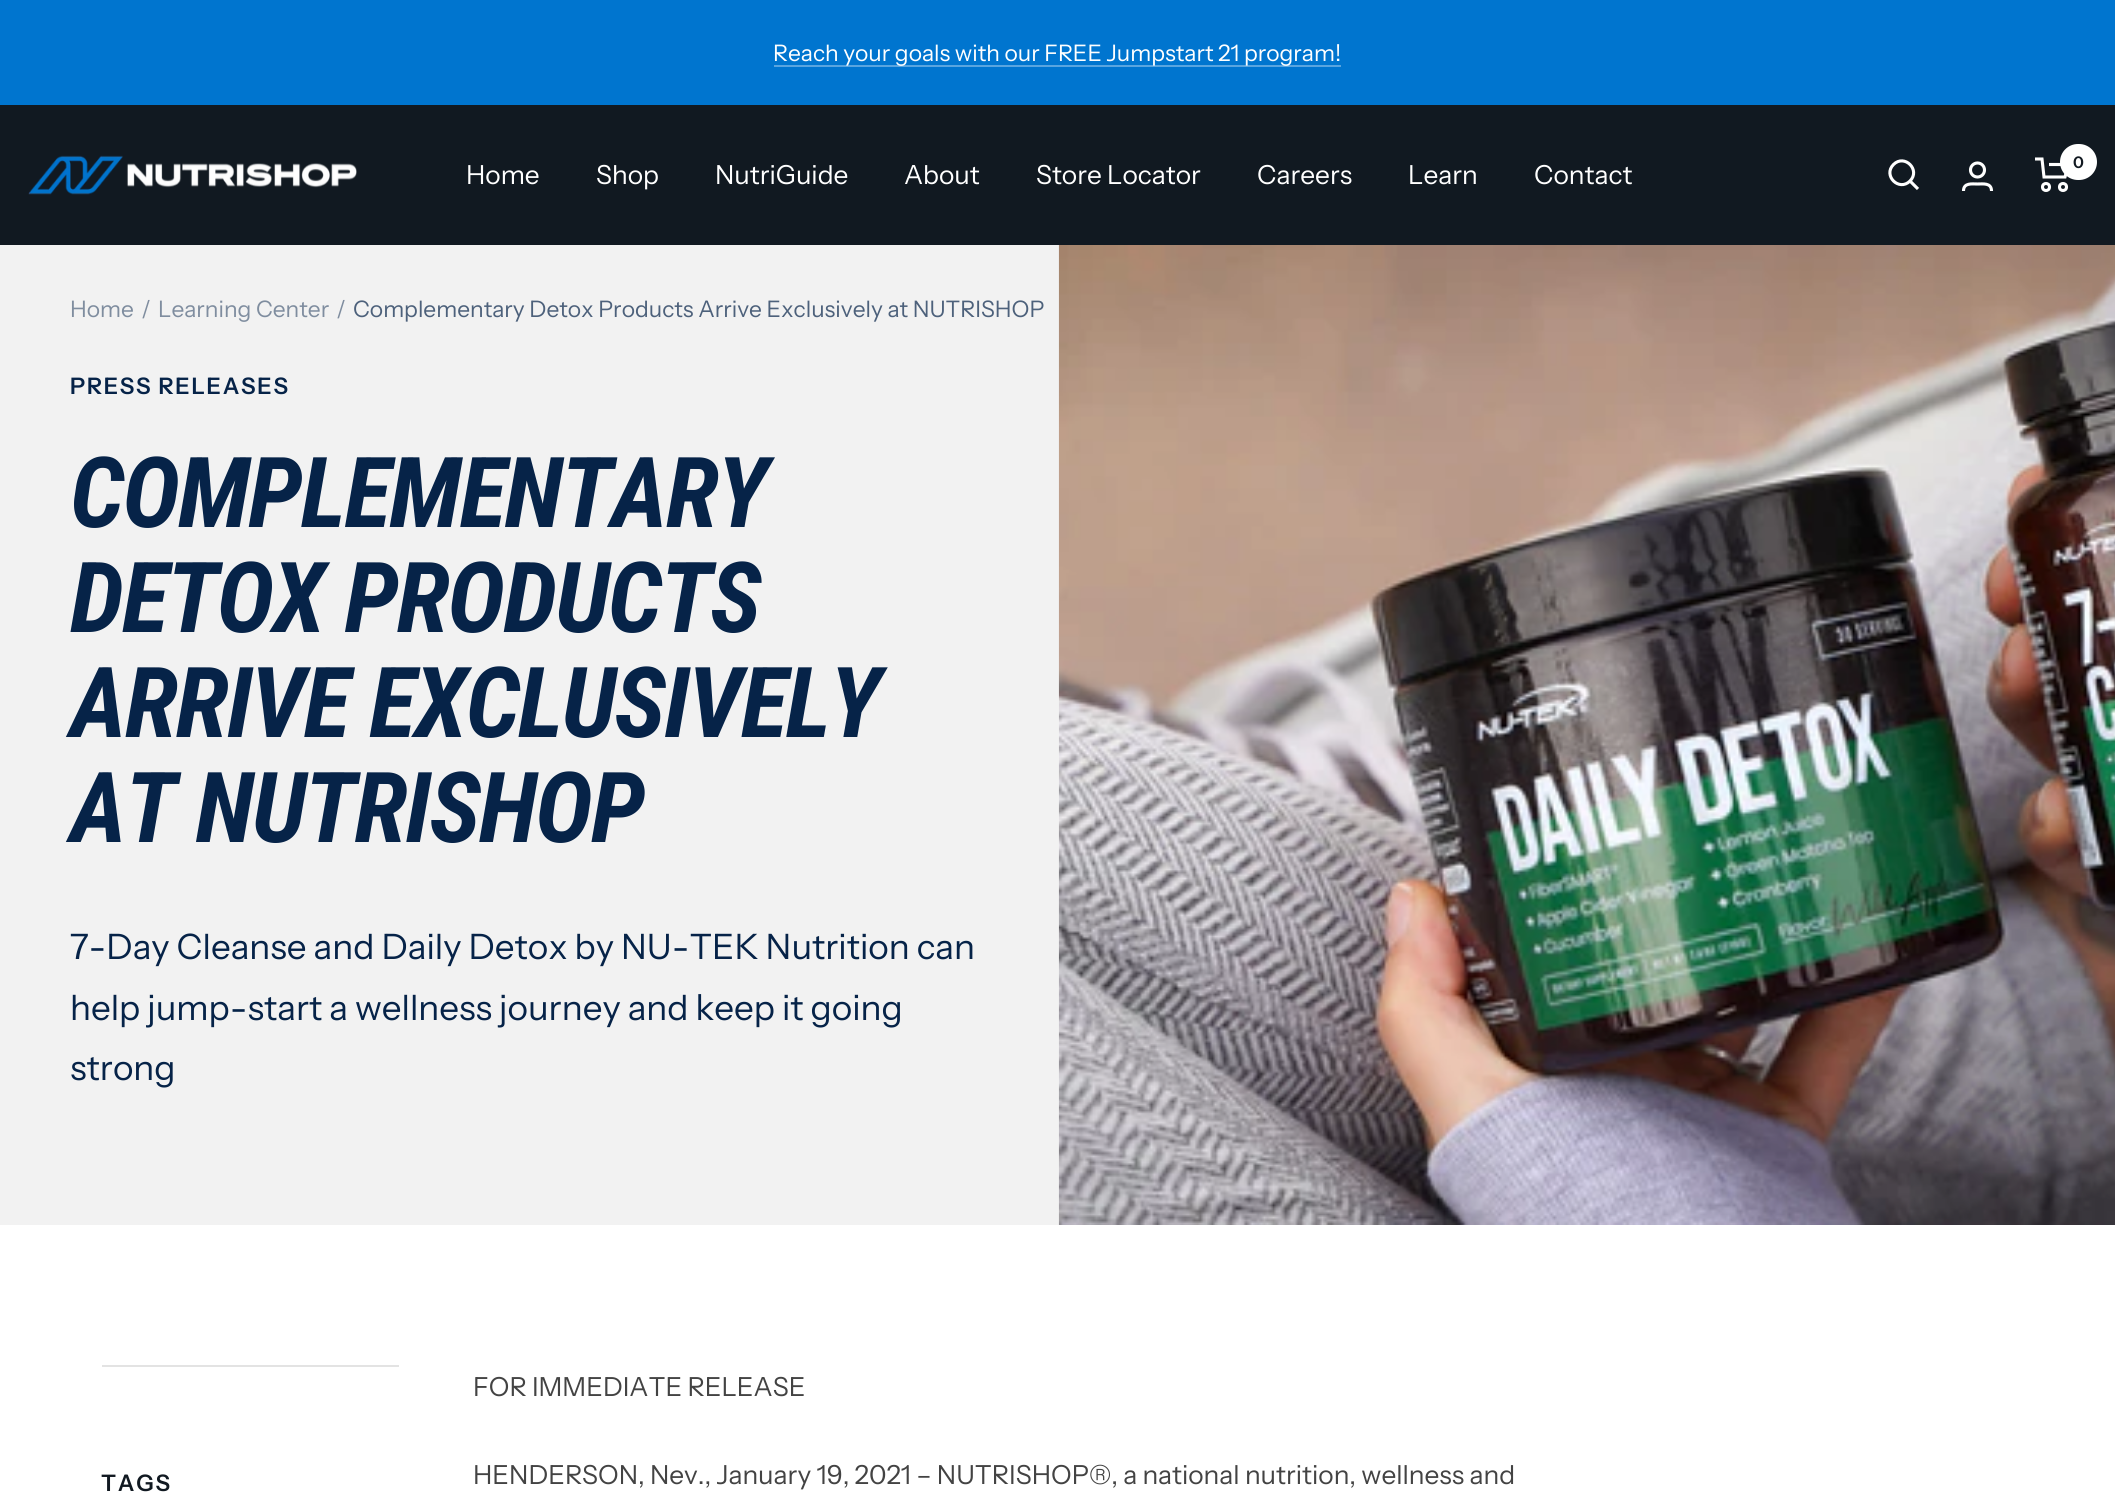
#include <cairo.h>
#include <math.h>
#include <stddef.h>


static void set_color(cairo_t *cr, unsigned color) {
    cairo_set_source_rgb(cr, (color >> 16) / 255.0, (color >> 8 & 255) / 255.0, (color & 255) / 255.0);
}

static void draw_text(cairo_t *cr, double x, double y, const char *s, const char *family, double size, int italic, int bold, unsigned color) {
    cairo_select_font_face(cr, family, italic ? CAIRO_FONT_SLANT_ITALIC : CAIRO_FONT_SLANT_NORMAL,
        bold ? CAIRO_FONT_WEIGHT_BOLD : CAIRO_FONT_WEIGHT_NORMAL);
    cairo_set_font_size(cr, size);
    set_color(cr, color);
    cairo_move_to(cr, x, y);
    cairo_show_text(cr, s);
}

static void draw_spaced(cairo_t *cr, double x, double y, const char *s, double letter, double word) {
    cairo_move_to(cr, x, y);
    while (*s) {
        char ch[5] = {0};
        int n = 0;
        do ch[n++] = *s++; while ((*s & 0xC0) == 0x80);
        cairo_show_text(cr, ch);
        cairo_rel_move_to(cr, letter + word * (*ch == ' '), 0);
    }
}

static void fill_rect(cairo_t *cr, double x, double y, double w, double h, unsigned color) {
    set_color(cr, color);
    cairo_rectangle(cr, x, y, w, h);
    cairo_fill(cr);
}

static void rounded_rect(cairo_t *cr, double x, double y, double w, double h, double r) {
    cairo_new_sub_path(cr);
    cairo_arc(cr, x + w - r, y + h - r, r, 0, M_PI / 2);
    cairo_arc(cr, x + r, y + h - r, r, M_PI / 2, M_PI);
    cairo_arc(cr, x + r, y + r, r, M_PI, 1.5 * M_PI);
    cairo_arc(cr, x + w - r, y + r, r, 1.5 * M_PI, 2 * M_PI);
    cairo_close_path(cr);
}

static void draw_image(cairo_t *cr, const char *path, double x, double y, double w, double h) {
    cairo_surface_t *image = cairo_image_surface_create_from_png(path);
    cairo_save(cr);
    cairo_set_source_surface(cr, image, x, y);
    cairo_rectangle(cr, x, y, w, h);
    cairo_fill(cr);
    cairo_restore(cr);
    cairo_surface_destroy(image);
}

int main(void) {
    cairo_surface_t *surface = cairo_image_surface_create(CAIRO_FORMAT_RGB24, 2115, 1505);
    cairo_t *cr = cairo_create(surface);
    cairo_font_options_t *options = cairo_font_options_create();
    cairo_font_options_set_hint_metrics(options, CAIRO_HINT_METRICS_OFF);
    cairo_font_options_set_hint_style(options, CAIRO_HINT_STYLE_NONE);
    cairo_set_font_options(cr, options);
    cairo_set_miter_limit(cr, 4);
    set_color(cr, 0xFFFFFF);
    cairo_paint(cr);
    fill_rect(cr, 0, 0, 2115, 105, 0x0075CF);
    fill_rect(cr, 774, 65, 567, 2, 0x59A5E0);
    draw_text(cr, 773, 61, "Reach your goals with our FREE Jumpstart 21 program!", "Instrument Sans", 22.75, 0, 0, 0xFFFFFF);
    fill_rect(cr, 0, 105, 2115, 140, 0x111921);
    draw_image(cr, "assets/img1.png", 28, 155, 329, 40);
    cairo_new_path(cr);
    cairo_move_to(cr, 1910, 181);
    cairo_curve_to(cr, 1921, 170, 1904.5, 153.5, 1893.5, 164.5);
    cairo_curve_to(cr, 1882.5, 175.5, 1899, 192, 1910, 181);
    cairo_close_path(cr);
    cairo_move_to(cr, 1910, 181);
    cairo_line_to(cr, 1918, 189);
    set_color(cr, 0xFFFFFF);
    cairo_set_line_width(cr, 3.1);
    cairo_stroke(cr);
    cairo_arc(cr, 1977.5, 170, 7, 0, 2 * M_PI);
    cairo_stroke(cr);
    cairo_new_path(cr);
    cairo_move_to(cr, 1963.5, 191);
    cairo_curve_to(cr, 1963.5, 182.5, 1972, 184, 1977.5, 184);
    cairo_curve_to(cr, 1983, 184, 1991.5, 182.5, 1991.5, 191);
    cairo_stroke(cr);
    cairo_new_path(cr);
    cairo_move_to(cr, 2035, 159);
    cairo_line_to(cr, 2042, 159);
    cairo_line_to(cr, 2044, 177);
    cairo_line_to(cr, 2065, 177);
    cairo_line_to(cr, 2068.5, 164.5);
    cairo_line_to(cr, 2049, 164.5);
    cairo_stroke(cr);
    cairo_arc(cr, 2046, 187, 3.5, 0, 2 * M_PI);
    cairo_stroke(cr);
    cairo_arc(cr, 2063, 187, 3.5, 0, 2 * M_PI);
    cairo_stroke(cr);
    rounded_rect(cr, 2060, 144, 37, 36, 18);
    cairo_fill(cr);
    draw_text(cr, 2073, 168, "0", "Instrument Sans SemiBold", 16, 0, 0, 0x111921);
    draw_text(cr, 466, 184, "Home", "Instrument Sans", 26.25, 0, 0, 0xFFFFFF);
    draw_text(cr, 596, 184, "Shop", "Instrument Sans", 26.25, 0, 0, 0xFFFFFF);
    draw_text(cr, 715, 184, "NutriGuide", "Instrument Sans", 26.25, 0, 0, 0xFFFFFF);
    draw_text(cr, 904, 184, "About", "Instrument Sans", 26.25, 0, 0, 0xFFFFFF);
    draw_text(cr, 1036, 184, "Store Locator", "Instrument Sans", 26.25, 0, 0, 0xFFFFFF);
    draw_text(cr, 1257, 184, "Careers", "Instrument Sans", 26.25, 0, 0, 0xFFFFFF);
    draw_text(cr, 1408, 184, "Learn", "Instrument Sans", 26.25, 0, 0, 0xFFFFFF);
    draw_text(cr, 1534, 184, "Contact", "Instrument Sans", 26.25, 0, 0, 0xFFFFFF);
    fill_rect(cr, 0, 245, 1059, 980, 0xF2F2F2);
    draw_text(cr, 70, 317, "Home", "Instrument Sans", 22.75, 0, 0, 0x7F8D9F);
    draw_text(cr, 141, 317, "/", "Instrument Sans", 22.75, 0, 0, 0x7F8D9F);
    draw_text(cr, 158, 317, "Learning Center", "Instrument Sans", 22.75, 0, 0, 0x7F8D9F);
    draw_text(cr, 336, 317, "/", "Instrument Sans", 22.75, 0, 0, 0x7F8D9F);
    draw_text(cr, 353, 317, "Complementary Detox Products Arrive Exclusively at NUTRISHOP", "Instrument Sans", 22.75, 0, 0, 0x4D617B);
    draw_image(cr, "assets/img2.png", 1058, 245, 1057, 980);
    cairo_select_font_face(cr, "Instrument Sans SemiBold", CAIRO_FONT_SLANT_NORMAL, CAIRO_FONT_WEIGHT_NORMAL);
    set_color(cr, 0x062348);
    draw_spaced(cr, 70, 394, "PRESS RELEASES", 1.75, 0);
    cairo_select_font_face(cr, "Roboto Condensed", CAIRO_FONT_SLANT_ITALIC, CAIRO_FONT_WEIGHT_BOLD);
    cairo_set_font_size(cr, 98);
    draw_spaced(cr, 70, 527, "COMPLEMENTARY", -1.75, 0);
    draw_spaced(cr, 70, 632, "DETOX PRODUCTS", -1.75, 0);
    draw_spaced(cr, 70, 737, "ARRIVE EXCLUSIVELY", -1.75, 0);
    draw_spaced(cr, 70, 842, "AT NUTRISHOP", -1.75, 0);
    draw_text(cr, 70, 959, "7-Day Cleanse and Daily Detox by NU-TEK Nutrition can", "Instrument Sans", 35, 0, 0, 0x062348);
    draw_text(cr, 70, 1020, "help jump-start a wellness journey and keep it going", "Instrument Sans", 35, 0, 0, 0x062348);
    draw_text(cr, 70, 1080, "strong", "Instrument Sans", 35, 0, 0, 0x062348);
    fill_rect(cr, 102, 1365, 297, 2, 0xE3E3E3);
    cairo_select_font_face(cr, "Instrument Sans SemiBold", CAIRO_FONT_SLANT_NORMAL, CAIRO_FONT_WEIGHT_NORMAL);
    cairo_set_font_size(cr, 22.75);
    set_color(cr, 0x111921);
    draw_spaced(cr, 101, 1491, "TAGS", 1.75, 0);
    draw_text(cr, 473, 1396, "FOR IMMEDIATE RELEASE", "Instrument Sans", 26.25, 0, 0, 0x434343);
    draw_text(cr, 473, 1484, "HENDERSON, Nev., January 19, 2021 – NUTRISHOP®, a national nutrition, wellness and", "Instrument Sans", 26.25, 0, 0, 0x434343);
    cairo_surface_write_to_png(surface, "output.png");
    cairo_font_options_destroy(options);
    cairo_destroy(cr);
    cairo_surface_destroy(surface);
    return 0;
}
